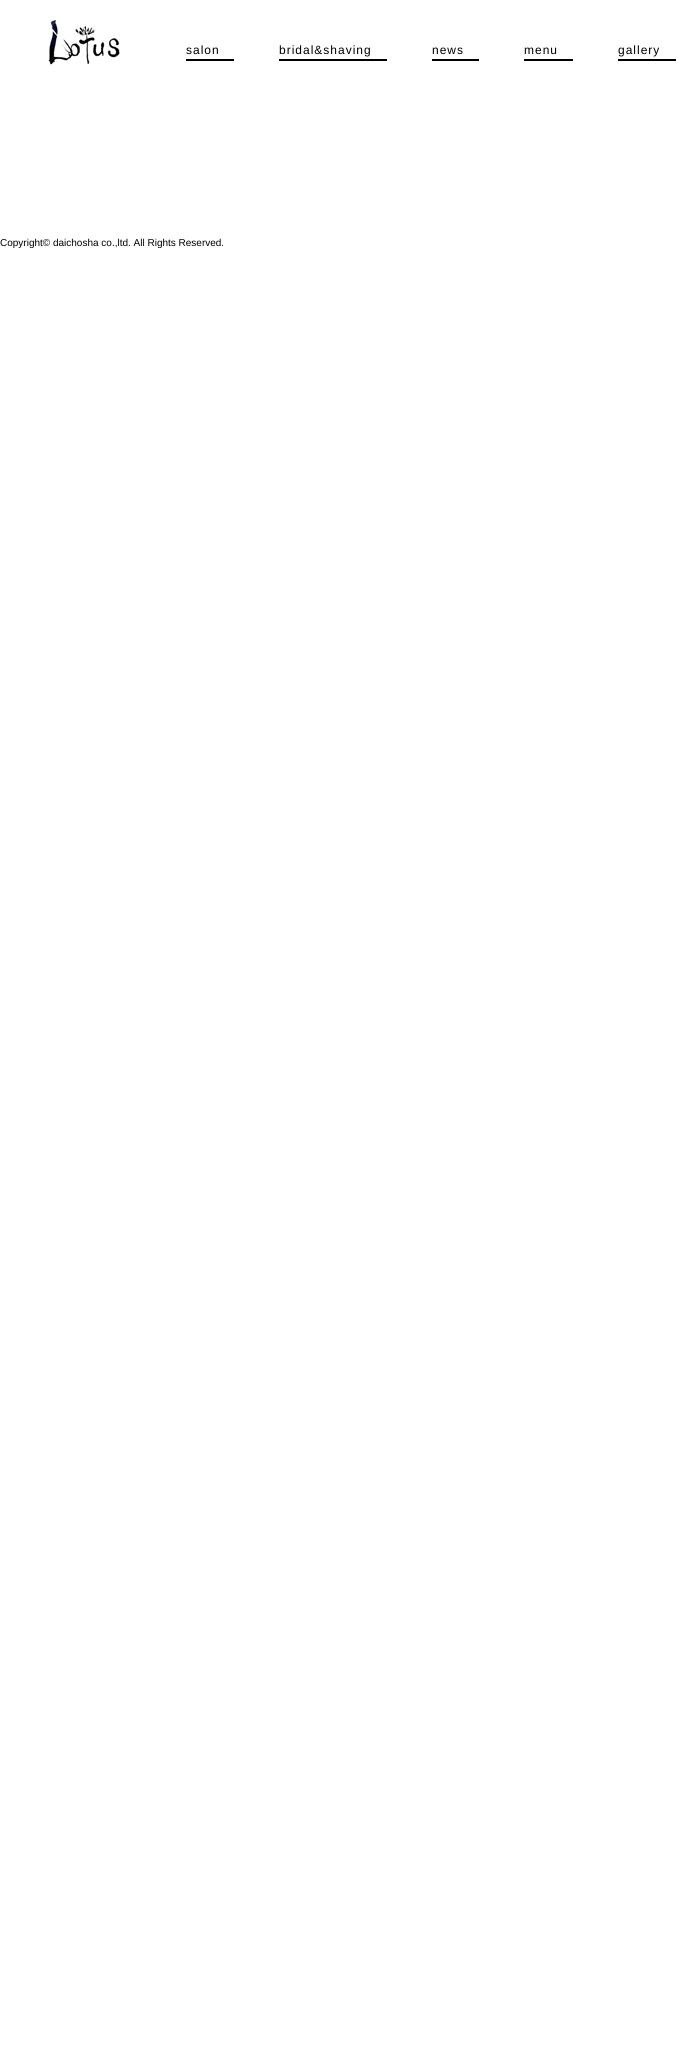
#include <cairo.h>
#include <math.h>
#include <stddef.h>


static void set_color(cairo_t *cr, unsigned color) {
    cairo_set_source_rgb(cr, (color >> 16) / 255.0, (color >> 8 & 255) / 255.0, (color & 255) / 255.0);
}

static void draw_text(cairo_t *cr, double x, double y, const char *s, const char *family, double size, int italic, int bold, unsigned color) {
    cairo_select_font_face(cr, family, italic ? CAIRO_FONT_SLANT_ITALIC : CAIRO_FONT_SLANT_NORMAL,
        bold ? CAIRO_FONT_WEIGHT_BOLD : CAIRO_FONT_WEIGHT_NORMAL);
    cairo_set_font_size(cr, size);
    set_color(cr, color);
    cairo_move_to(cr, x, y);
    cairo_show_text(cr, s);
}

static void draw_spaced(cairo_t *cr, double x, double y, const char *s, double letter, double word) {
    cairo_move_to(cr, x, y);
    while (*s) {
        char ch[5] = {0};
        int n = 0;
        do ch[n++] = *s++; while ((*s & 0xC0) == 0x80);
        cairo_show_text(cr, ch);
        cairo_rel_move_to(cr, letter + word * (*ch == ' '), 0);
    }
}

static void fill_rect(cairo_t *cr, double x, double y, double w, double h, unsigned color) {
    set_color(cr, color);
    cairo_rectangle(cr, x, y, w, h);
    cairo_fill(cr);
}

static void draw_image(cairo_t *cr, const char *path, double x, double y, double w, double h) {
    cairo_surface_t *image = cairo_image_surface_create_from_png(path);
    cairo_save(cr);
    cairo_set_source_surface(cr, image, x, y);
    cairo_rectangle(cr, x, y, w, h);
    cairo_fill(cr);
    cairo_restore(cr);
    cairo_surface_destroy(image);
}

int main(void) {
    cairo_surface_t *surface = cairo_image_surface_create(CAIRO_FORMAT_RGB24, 681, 2053);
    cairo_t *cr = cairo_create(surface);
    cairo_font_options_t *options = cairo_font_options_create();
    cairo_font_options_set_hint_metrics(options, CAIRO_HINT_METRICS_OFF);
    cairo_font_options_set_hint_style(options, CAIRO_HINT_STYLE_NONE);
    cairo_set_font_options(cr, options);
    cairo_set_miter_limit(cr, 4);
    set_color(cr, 0xFFFFFF);
    cairo_paint(cr);
    draw_image(cr, "assets/img1.png", 48, 20, 72, 45);
    cairo_select_font_face(cr, "Liberation Sans", CAIRO_FONT_SLANT_NORMAL, CAIRO_FONT_WEIGHT_NORMAL);
    cairo_set_font_size(cr, 12);
    set_color(cr, 0x000000);
    draw_spaced(cr, 186, 54, "salon", 1, 0);
    fill_rect(cr, 186, 59, 48, 2, 0x000000);
    draw_spaced(cr, 279, 54, "bridal&shaving", 1, 0);
    fill_rect(cr, 279, 59, 108, 2, 0x000000);
    draw_spaced(cr, 432, 54, "news", 1, 0);
    fill_rect(cr, 432, 59, 47, 2, 0x000000);
    draw_spaced(cr, 524, 54, "menu", 1, 0);
    fill_rect(cr, 524, 59, 49, 2, 0x000000);
    draw_spaced(cr, 618, 54, "gallery", 1, 0);
    fill_rect(cr, 618, 59, 58, 2, 0x000000);
    draw_text(cr, 0, 246, "Copyright© daichosha co.,ltd. All Rights Reserved.", "Liberation Sans", 10, 0, 0, 0x000000);
    cairo_surface_write_to_png(surface, "output.png");
    cairo_font_options_destroy(options);
    cairo_destroy(cr);
    cairo_surface_destroy(surface);
    return 0;
}
